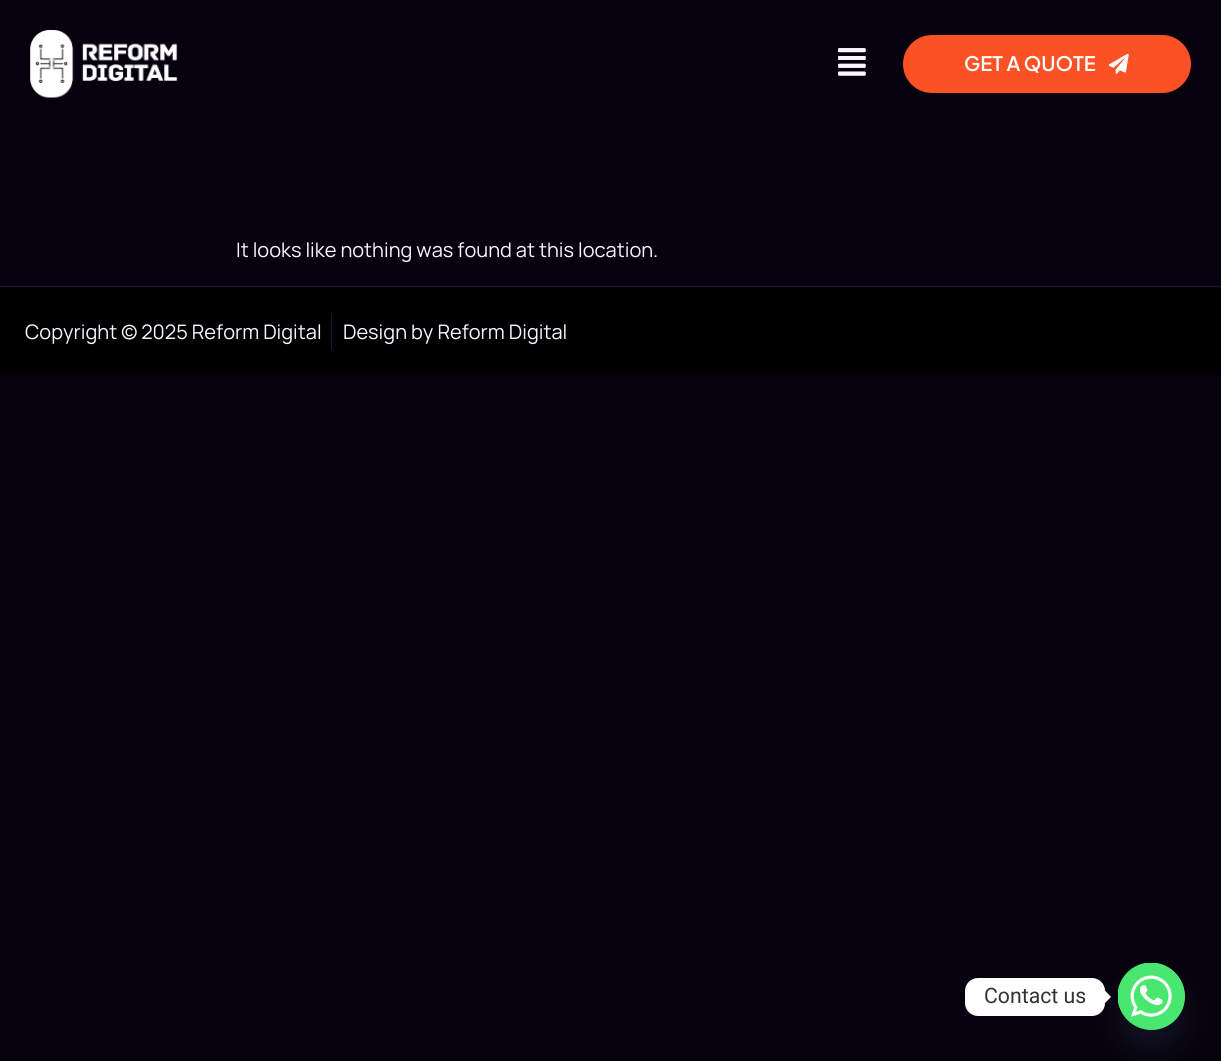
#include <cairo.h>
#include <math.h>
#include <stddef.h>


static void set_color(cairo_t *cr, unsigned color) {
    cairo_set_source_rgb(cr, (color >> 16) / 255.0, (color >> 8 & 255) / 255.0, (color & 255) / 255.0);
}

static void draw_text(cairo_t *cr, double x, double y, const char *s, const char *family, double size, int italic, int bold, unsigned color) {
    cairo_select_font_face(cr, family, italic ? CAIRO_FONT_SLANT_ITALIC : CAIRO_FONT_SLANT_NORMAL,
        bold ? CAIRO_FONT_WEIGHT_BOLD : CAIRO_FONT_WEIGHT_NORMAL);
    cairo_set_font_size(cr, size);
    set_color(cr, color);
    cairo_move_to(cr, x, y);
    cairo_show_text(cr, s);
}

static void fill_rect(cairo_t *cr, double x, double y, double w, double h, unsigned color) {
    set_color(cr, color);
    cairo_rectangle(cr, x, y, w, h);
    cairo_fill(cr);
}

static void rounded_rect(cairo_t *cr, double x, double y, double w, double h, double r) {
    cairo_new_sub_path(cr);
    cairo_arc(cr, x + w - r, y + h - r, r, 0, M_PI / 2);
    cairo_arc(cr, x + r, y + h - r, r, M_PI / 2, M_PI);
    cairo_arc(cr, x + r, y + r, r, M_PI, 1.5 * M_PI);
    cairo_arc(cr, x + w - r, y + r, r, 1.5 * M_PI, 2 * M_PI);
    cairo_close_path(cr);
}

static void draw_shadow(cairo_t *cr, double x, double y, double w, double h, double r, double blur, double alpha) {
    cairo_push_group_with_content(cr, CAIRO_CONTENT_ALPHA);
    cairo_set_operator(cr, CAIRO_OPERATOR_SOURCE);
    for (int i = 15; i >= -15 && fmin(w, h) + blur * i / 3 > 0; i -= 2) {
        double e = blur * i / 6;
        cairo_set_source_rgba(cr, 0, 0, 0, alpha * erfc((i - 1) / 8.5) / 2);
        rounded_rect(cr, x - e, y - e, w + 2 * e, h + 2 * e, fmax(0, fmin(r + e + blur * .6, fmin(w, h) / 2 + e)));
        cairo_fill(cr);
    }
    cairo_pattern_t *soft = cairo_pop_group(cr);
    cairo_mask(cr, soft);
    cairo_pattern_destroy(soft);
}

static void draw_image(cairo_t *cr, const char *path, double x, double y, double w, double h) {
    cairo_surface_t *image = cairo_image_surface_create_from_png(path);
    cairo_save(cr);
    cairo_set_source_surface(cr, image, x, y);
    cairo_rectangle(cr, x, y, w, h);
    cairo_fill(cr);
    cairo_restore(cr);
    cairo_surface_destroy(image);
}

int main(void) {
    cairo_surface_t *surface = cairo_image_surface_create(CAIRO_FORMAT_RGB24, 1221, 1061);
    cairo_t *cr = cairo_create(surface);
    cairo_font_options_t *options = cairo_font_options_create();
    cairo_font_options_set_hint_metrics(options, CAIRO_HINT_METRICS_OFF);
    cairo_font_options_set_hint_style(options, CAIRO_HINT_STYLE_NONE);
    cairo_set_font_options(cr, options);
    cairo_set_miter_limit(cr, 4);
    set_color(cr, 0x06010E);
    cairo_paint(cr);
    draw_image(cr, "assets/img1.png", 838, 48, 28, 28);
    draw_image(cr, "assets/img2.png", 30, 30, 148, 68);
    draw_image(cr, "assets/img3.png", 838, 48, 28, 28);
    set_color(cr, 0xFB5225);
    rounded_rect(cr, 903, 35, 288, 58, 29);
    cairo_fill(cr);
    draw_text(cr, 964, 71, "GET A QUOTE", "Plus Jakarta Sans SemiBold", 20, 0, 0, 0xFFFFFF);
    draw_image(cr, "assets/img4.png", 1109, 54, 20, 20);
    draw_text(cr, 236, 257, "It looks like nothing was found at this location.", "Manrope", 20, 0, 0, 0xF9F6FF);
    fill_rect(cr, 0, 286, 1221, 1, 0x26123E);
    fill_rect(cr, 0, 288, 1221, 87, 0x000000);
    draw_text(cr, 25, 339, "Copyright © 2025 Reform Digital", "Manrope", 20, 0, 0, 0xF9F6FF);
    fill_rect(cr, 331, 313, 1, 37, 0x26123E);
    draw_text(cr, 343, 339, "Design by Reform Digital", "Manrope", 20, 0, 0, 0xF9F6FF);
    set_color(cr, 0x49687E);
    draw_shadow(cr, 1118, 983, 67, 67, 33.5, 15, 0.16);
    set_color(cr, 0xFFFFFF);
    rounded_rect(cr, 965, 978, 140, 38, 13);
    cairo_fill(cr);
    draw_text(cr, 984, 1003, "Contact us", "Roboto", 21.25, 0, 0, 0x333333);
    set_color(cr, 0xFFFFFF);
    cairo_new_path(cr);
    cairo_move_to(cr, 1105, 1003);
    cairo_line_to(cr, 1105, 990.5);
    cairo_line_to(cr, 1111, 997);
    cairo_close_path(cr);
    cairo_fill(cr);
    set_color(cr, 0x49E670);
    cairo_arc(cr, 1151.5, 996.5, 33.5, 0, 2 * M_PI);
    cairo_fill(cr);
    draw_image(cr, "assets/img5.png", 1118, 963, 67, 67);
    cairo_surface_write_to_png(surface, "output.png");
    cairo_font_options_destroy(options);
    cairo_destroy(cr);
    cairo_surface_destroy(surface);
    return 0;
}
